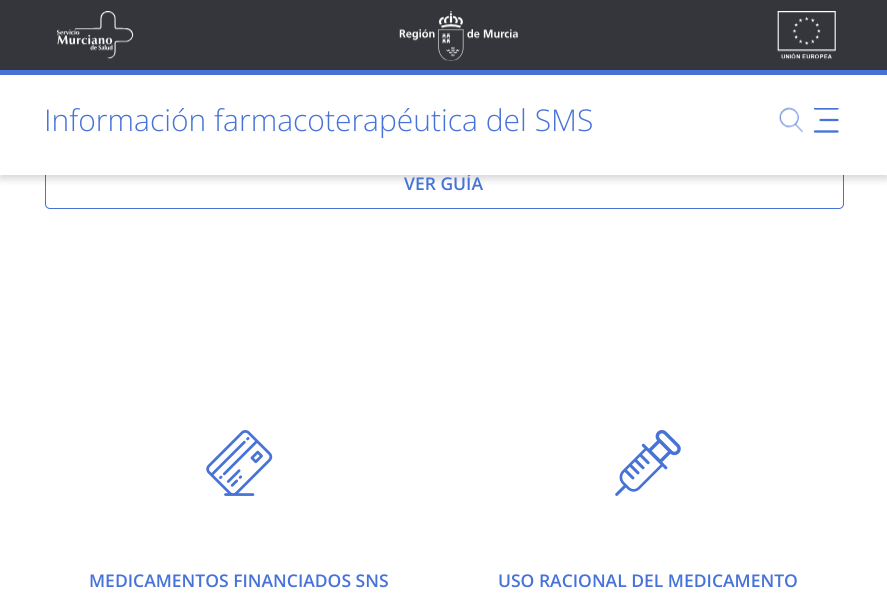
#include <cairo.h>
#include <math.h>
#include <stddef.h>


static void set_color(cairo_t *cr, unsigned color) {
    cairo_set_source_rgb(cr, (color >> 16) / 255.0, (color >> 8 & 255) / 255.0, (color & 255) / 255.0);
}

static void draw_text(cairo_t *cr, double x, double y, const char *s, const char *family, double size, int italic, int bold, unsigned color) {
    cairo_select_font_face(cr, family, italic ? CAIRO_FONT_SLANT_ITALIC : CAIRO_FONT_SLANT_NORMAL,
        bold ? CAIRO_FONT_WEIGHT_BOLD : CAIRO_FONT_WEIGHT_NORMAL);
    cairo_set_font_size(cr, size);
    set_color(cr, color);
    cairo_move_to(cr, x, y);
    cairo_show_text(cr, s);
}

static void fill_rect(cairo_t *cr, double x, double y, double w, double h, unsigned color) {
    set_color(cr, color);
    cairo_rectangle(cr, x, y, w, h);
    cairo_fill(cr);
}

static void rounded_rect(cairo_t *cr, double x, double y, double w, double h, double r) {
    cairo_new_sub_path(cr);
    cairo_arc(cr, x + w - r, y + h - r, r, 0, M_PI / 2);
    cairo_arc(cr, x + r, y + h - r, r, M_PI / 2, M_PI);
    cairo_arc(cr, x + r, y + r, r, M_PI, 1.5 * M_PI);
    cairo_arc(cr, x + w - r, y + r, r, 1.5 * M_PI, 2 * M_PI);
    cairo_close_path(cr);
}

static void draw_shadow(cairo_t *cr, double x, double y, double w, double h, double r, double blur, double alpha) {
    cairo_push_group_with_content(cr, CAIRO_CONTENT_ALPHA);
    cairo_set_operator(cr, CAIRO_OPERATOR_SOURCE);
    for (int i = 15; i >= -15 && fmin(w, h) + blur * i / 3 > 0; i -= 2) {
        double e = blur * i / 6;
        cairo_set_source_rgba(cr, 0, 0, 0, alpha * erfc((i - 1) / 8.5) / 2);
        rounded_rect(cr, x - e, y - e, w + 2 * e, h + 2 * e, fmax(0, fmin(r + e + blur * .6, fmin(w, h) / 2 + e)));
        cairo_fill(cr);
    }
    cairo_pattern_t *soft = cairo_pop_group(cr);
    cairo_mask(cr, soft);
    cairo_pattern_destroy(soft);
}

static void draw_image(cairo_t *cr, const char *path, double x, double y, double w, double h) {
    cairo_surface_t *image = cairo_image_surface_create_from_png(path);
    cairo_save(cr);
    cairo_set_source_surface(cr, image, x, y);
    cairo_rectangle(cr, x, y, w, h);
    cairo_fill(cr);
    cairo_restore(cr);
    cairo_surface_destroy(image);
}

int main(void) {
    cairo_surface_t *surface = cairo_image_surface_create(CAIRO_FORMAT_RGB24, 887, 595);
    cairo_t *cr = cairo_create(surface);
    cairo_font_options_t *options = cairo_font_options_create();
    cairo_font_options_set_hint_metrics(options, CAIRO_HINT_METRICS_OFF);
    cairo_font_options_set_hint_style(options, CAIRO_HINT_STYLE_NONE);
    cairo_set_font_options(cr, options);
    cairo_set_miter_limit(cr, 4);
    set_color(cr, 0xFFFFFF);
    cairo_paint(cr);
    fill_rect(cr, 0, 0, 887, 70, 0x35363B);
    fill_rect(cr, 0, 70, 887, 5, 0x4772D8);
    draw_image(cr, "assets/img1.png", 56, 11, 78, 49);
    draw_image(cr, "assets/img2.png", 399, 11, 119, 50);
    draw_image(cr, "assets/img3.png", 777, 11, 59, 49);
    cairo_save(cr);
    cairo_rectangle(cr, 0, 175, 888, 68);
    cairo_clip(cr);
    rounded_rect(cr, 45.5, 159.5, 798, 49, 4.5);
    cairo_set_line_width(cr, 1);
    cairo_stroke(cr);
    cairo_restore(cr);
    cairo_save(cr);
    cairo_set_fill_rule(cr, CAIRO_FILL_RULE_EVEN_ODD);
    cairo_new_path(cr);
    cairo_move_to(cr, 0, 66);
    cairo_line_to(cr, 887, 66);
    cairo_line_to(cr, 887, 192);
    cairo_line_to(cr, 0, 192);
    cairo_close_path(cr);
    cairo_move_to(cr, 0, 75);
    cairo_line_to(cr, 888, 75);
    cairo_line_to(cr, 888, 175);
    cairo_line_to(cr, 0, 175);
    cairo_close_path(cr);
    cairo_clip(cr);
    set_color(cr, 0x000000);
    draw_shadow(cr, 0, 79, 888, 100, 0, 4, 0.16);
    cairo_restore(cr);
    draw_text(cr, 44, 131, "Información farmacoterapéutica del SMS", "Open Sans Light", 30, 0, 0, 0x4772D8);
    draw_image(cr, "assets/img4.png", 779, 107, 24, 26);
    cairo_save(cr);
    cairo_rectangle(cr, 814, 108, 25, 25);
    cairo_clip(cr);
    cairo_new_path(cr);
    cairo_move_to(cr, 815, 108.5);
    cairo_line_to(cr, 837.5, 108.5);
    cairo_set_line_width(cr, 2.3);
    cairo_set_line_cap(cr, CAIRO_LINE_CAP_ROUND);
    cairo_stroke(cr);
    cairo_restore(cr);
    cairo_new_path(cr);
    cairo_move_to(cr, 820.5, 120);
    cairo_line_to(cr, 837.5, 120);
    cairo_move_to(cr, 815, 131.5);
    cairo_line_to(cr, 837.5, 131.5);
    cairo_set_line_width(cr, 2.3);
    cairo_set_line_cap(cr, CAIRO_LINE_CAP_ROUND);
    cairo_stroke(cr);
    cairo_save(cr);
    cairo_rectangle(cr, 0, 175, 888, 68);
    cairo_clip(cr);
    draw_text(cr, 404, 190, "VER GUÍA", "Open Sans SemiBold", 17.5, 0, 0, 0x4772D8);
    cairo_restore(cr);
    draw_image(cr, "assets/img5.png", 206, 430, 67, 66);
    draw_text(cr, 89, 587, "MEDICAMENTOS FINANCIADOS SNS", "Open Sans SemiBold", 17.5, 0, 0, 0x4772D8);
    draw_image(cr, "assets/img6.png", 615, 430, 66, 66);
    draw_text(cr, 498, 587, "USO RACIONAL DEL MEDICAMENTO", "Open Sans SemiBold", 17.5, 0, 0, 0x4772D8);
    cairo_surface_write_to_png(surface, "output.png");
    cairo_font_options_destroy(options);
    cairo_destroy(cr);
    cairo_surface_destroy(surface);
    return 0;
}
